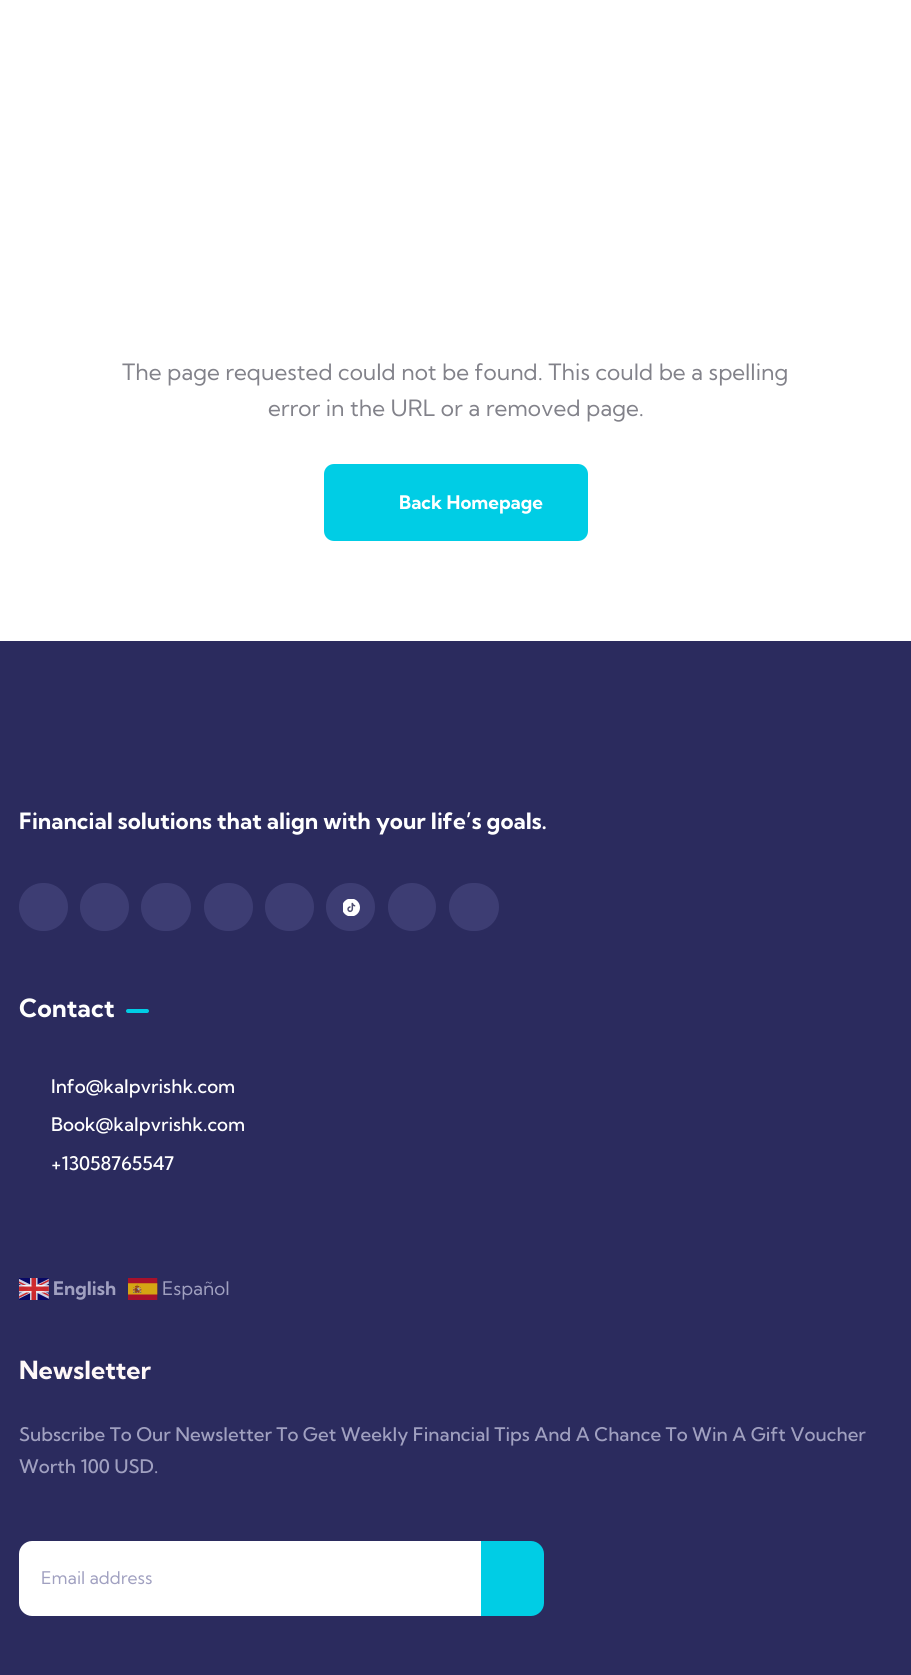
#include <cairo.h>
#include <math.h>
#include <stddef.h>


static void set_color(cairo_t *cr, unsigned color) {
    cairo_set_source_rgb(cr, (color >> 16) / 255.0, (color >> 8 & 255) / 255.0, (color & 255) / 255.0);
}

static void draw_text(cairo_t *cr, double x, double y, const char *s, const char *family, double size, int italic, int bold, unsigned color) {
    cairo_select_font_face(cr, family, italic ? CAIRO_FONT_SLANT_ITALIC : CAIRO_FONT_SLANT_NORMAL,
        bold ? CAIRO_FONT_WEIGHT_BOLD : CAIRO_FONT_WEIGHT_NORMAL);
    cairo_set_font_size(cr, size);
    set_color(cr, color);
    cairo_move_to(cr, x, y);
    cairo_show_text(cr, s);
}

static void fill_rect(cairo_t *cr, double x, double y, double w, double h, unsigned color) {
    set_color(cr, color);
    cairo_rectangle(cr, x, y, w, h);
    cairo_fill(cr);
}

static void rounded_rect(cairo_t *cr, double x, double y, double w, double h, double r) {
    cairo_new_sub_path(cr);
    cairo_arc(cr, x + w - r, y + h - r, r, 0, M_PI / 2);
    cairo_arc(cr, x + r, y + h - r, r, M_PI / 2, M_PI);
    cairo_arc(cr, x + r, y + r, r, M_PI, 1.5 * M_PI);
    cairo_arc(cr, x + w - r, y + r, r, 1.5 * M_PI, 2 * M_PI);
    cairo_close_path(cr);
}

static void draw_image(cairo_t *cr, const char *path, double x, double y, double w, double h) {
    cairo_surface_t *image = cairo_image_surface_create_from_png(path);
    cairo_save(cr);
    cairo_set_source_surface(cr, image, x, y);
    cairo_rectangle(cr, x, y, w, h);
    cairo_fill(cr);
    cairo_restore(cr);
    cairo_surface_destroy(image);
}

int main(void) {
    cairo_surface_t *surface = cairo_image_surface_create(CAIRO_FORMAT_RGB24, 911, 1675);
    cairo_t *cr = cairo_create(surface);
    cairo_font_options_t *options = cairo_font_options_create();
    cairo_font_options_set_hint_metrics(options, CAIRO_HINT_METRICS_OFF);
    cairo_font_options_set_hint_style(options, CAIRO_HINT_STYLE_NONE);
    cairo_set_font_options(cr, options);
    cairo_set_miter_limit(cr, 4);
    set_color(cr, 0xFFFFFF);
    cairo_paint(cr);
    draw_text(cr, 122, 380, "The page requested could not be found. This could be a spelling", "Kumbh Sans", 22.5, 0, 0, 0x82828A);
    draw_text(cr, 268, 416, "error in the URL or a removed page.", "Kumbh Sans", 22.5, 0, 0, 0x82828A);
    set_color(cr, 0x00CDE5);
    rounded_rect(cr, 324, 464, 264, 77, 10);
    cairo_fill(cr);
    draw_text(cr, 399, 509, "Back Homepage", "Kumbh Sans", 18.75, 0, 1, 0xFFFFFF);
    fill_rect(cr, 0, 641, 911, 1034, 0x2B2B5E);
    draw_text(cr, 19, 829, "Financial solutions that align with your life’s goals.", "Kumbh Sans", 22.5, 0, 1, 0xFFFFFF);
    set_color(cr, 0x3D3D73);
    rounded_rect(cr, 19, 883, 49, 48, 24);
    cairo_fill(cr);
    rounded_rect(cr, 80, 883, 49, 48, 24);
    cairo_fill(cr);
    rounded_rect(cr, 141, 883, 50, 48, 24);
    cairo_fill(cr);
    rounded_rect(cr, 204, 883, 49, 48, 24);
    cairo_fill(cr);
    rounded_rect(cr, 265, 883, 49, 48, 24);
    cairo_fill(cr);
    rounded_rect(cr, 326, 883, 49, 48, 24);
    cairo_fill(cr);
    draw_image(cr, "assets/img1.png", 343, 899, 17, 17);
    cairo_arc(cr, 412, 907, 24, 0, 2 * M_PI);
    cairo_fill(cr);
    rounded_rect(cr, 449, 883, 50, 48, 24);
    cairo_fill(cr);
    draw_text(cr, 19, 1017, "Contact", "Kumbh Sans", 25, 0, 1, 0xFFFFFF);
    set_color(cr, 0x00CDE5);
    rounded_rect(cr, 126, 1009, 23, 4, 2);
    cairo_fill(cr);
    draw_text(cr, 51, 1093, "Info@kalpvrishk.com", "Kumbh Sans Medium", 18.75, 0, 0, 0xFFFFFF);
    draw_text(cr, 51, 1131, "Book@kalpvrishk.com", "Kumbh Sans Medium", 18.75, 0, 0, 0xFFFFFF);
    draw_text(cr, 51, 1170, "+13058765547", "Kumbh Sans Medium", 18.75, 0, 0, 0xFFFFFF);
    draw_image(cr, "assets/img2.png", 19, 1278, 30, 22);
    draw_text(cr, 53, 1295, "English", "Kumbh Sans", 18.75, 0, 1, 0xA0A0C0);
    draw_image(cr, "assets/img3.png", 128, 1278, 30, 22);
    draw_text(cr, 162, 1295, "Español", "Kumbh Sans", 18.75, 0, 0, 0xA0A0C0);
    draw_text(cr, 19, 1379, "Newsletter", "Kumbh Sans", 25, 0, 1, 0xFFF8F8);
    draw_text(cr, 19, 1441, "Subscribe To Our Newsletter To Get Weekly Financial Tips And A Chance To Win A Gift Voucher", "Kumbh Sans Medium", 18.75, 0, 0, 0xA0A0C0);
    draw_text(cr, 19, 1473, "Worth 100 USD.", "Kumbh Sans Medium", 18.75, 0, 0, 0xA0A0C0);
    set_color(cr, 0xFFFFFF);
    cairo_new_path(cr);
    cairo_move_to(cr, 32, 1541);
    cairo_line_to(cr, 481, 1541);
    cairo_line_to(cr, 481, 1616);
    cairo_line_to(cr, 32, 1616);
    cairo_curve_to(cr, 25, 1616, 19, 1610, 19, 1603);
    cairo_line_to(cr, 19, 1554);
    cairo_curve_to(cr, 19, 1547, 25, 1541, 32, 1541);
    cairo_close_path(cr);
    cairo_fill(cr);
    draw_text(cr, 41, 1584, "Email address", "Kumbh Sans", 17.5, 0, 0, 0xA0A0C0);
    set_color(cr, 0x00CDE5);
    cairo_new_path(cr);
    cairo_move_to(cr, 481, 1541);
    cairo_line_to(cr, 531, 1541);
    cairo_curve_to(cr, 538, 1541, 544, 1547, 544, 1554);
    cairo_line_to(cr, 544, 1603);
    cairo_curve_to(cr, 544, 1610, 538, 1616, 531, 1616);
    cairo_line_to(cr, 481, 1616);
    cairo_close_path(cr);
    cairo_fill(cr);
    cairo_surface_write_to_png(surface, "output.png");
    cairo_font_options_destroy(options);
    cairo_destroy(cr);
    cairo_surface_destroy(surface);
    return 0;
}
